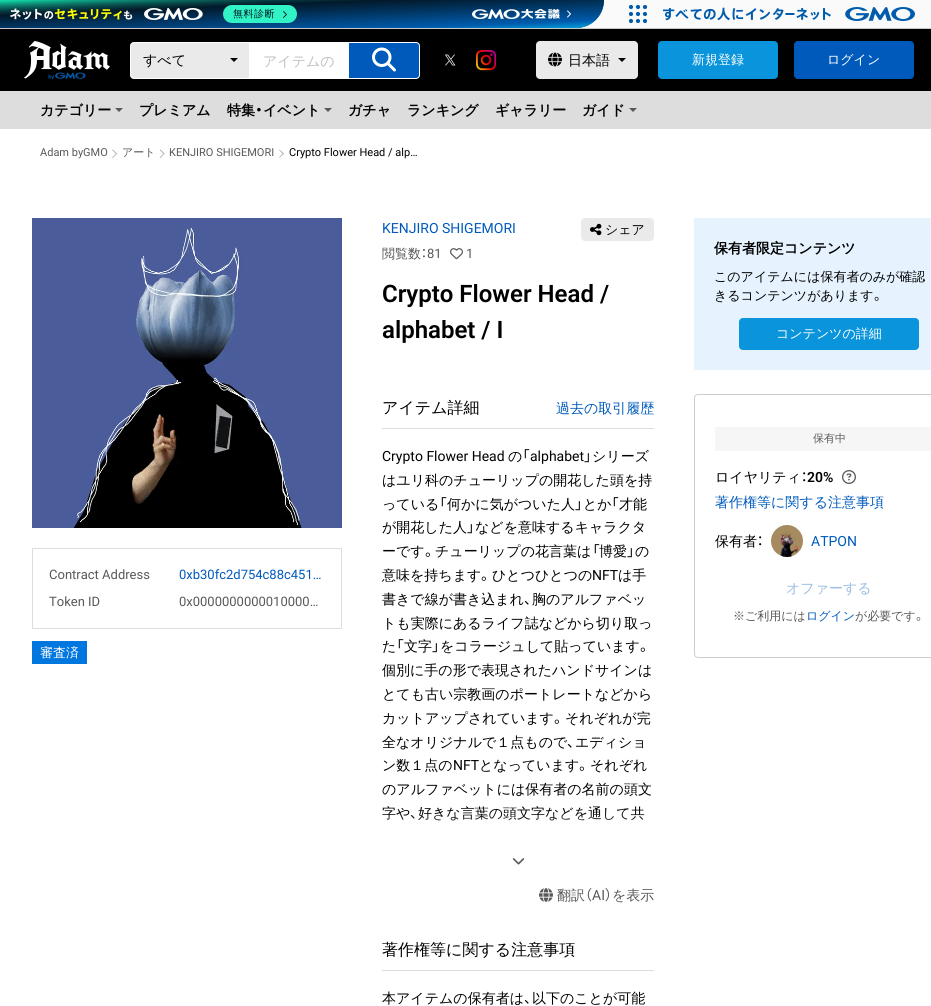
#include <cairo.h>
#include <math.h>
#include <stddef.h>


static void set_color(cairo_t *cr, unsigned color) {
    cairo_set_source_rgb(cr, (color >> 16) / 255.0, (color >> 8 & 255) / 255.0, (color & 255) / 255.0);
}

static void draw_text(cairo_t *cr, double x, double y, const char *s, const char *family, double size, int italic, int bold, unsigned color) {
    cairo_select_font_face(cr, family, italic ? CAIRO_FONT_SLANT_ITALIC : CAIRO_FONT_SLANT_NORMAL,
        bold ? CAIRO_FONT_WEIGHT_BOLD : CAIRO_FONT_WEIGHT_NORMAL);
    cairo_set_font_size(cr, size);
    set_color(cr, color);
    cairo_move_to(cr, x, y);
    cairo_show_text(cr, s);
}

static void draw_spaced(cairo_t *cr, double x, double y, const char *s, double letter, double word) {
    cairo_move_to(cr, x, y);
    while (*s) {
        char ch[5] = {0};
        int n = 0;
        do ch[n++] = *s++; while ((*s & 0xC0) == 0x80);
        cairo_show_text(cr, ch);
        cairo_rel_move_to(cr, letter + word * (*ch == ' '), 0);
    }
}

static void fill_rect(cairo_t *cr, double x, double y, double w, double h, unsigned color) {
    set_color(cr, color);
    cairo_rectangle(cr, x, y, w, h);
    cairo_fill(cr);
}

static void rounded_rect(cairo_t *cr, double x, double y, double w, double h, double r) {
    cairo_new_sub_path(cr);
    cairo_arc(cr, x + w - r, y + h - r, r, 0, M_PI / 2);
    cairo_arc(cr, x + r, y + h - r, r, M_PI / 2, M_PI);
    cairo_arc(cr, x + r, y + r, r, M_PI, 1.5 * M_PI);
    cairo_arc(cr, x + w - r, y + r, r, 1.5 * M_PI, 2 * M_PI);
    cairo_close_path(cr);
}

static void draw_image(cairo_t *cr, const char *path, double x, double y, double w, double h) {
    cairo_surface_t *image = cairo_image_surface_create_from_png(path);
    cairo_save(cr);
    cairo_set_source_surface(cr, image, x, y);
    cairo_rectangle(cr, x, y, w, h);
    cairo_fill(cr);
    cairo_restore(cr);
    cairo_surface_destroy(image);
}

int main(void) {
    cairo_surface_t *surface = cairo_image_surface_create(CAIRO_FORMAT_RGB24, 931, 1006);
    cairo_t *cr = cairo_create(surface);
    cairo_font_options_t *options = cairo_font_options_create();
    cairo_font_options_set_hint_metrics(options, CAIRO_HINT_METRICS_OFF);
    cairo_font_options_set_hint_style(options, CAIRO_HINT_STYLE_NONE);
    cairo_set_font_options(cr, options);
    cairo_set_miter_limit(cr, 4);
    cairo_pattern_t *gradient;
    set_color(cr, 0xFFFFFF);
    cairo_paint(cr);
    fill_rect(cr, 576, 0, 355, 28, 0xFAFAFA);
    fill_rect(cr, 0, 28, 931, 1, 0xC8C8C8);
    gradient = cairo_pattern_create_linear(301, -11, 303, 39);
    cairo_pattern_add_color_stop_rgba(gradient, 0, 0.075, 0.831, 0.647, 1);
    cairo_pattern_add_color_stop_rgba(gradient, 0.31, 0.055, 0.451, 0.396, 1);
    cairo_pattern_add_color_stop_rgba(gradient, 0.71, 0.043, 0.302, 0.294, 1);
    cairo_set_source(cr, gradient);
    cairo_pattern_destroy(gradient);
    cairo_new_path(cr);
    cairo_move_to(cr, 0, 0);
    cairo_line_to(cr, 604, 0);
    cairo_curve_to(cr, 604, 15.5, 591.5, 28, 576, 28);
    cairo_line_to(cr, 0, 28);
    cairo_close_path(cr);
    cairo_fill(cr);
    gradient = cairo_pattern_create_linear(303, 39, 301, -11);
    cairo_pattern_add_color_stop_rgba(gradient, 0, 0.004, 0.612, 0.851, 1);
    cairo_pattern_add_color_stop_rgba(gradient, 0.14, 0, 0.357, 0.675, 1);
    cairo_pattern_add_color_stop_rgba(gradient, 0.71, 0.008, 0.098, 0.165, 1);
    cairo_pattern_add_color_stop_rgba(gradient, 1, 0.008, 0.098, 0.165, 0);
    cairo_set_source(cr, gradient);
    cairo_pattern_destroy(gradient);
    cairo_new_path(cr);
    cairo_move_to(cr, 0, 0);
    cairo_line_to(cr, 604, 0);
    cairo_curve_to(cr, 604, 15.5, 591.5, 28, 576, 28);
    cairo_line_to(cr, 0, 28);
    cairo_close_path(cr);
    cairo_fill(cr);
    draw_image(cr, "assets/img1.png", 10, 8, 193, 12);
    set_color(cr, 0x30F4C5);
    rounded_rect(cr, 223, 5, 74, 18, 9);
    cairo_fill(cr);
    cairo_select_font_face(cr, "WenQuanYi Zen Hei Medium", CAIRO_FONT_SLANT_NORMAL, CAIRO_FONT_WEIGHT_NORMAL);
    cairo_set_font_size(cr, 10);
    set_color(cr, 0x021725);
    draw_spaced(cr, 233, 17, "無料診断", 0.5, 0);
    cairo_new_path(cr);
    cairo_move_to(cr, 283.5, 11.5);
    cairo_line_to(cr, 286.5, 14.5);
    cairo_line_to(cr, 283.5, 17.5);
    cairo_set_line_width(cr, 0.9);
    cairo_set_line_cap(cr, CAIRO_LINE_CAP_ROUND);
    cairo_set_line_join(cr, CAIRO_LINE_JOIN_ROUND);
    cairo_stroke(cr);
    draw_image(cr, "assets/img2.png", 472, 9, 99, 10);
    draw_image(cr, "assets/img3.png", 628, 4, 20, 20);
    draw_image(cr, "assets/img4.png", 663, 7, 252, 14);
    fill_rect(cr, 0, 29, 931, 62, 0x000000);
    draw_image(cr, "assets/img5.png", 24, 41, 86, 38);
    set_color(cr, 0xEAEAEA);
    cairo_new_path(cr);
    cairo_move_to(cr, 134, 42.5);
    cairo_line_to(cr, 249.5, 42.5);
    cairo_line_to(cr, 249.5, 78.5);
    cairo_line_to(cr, 134, 78.5);
    cairo_curve_to(cr, 132, 78.5, 130.5, 77, 130.5, 75);
    cairo_line_to(cr, 130.5, 46);
    cairo_curve_to(cr, 130.5, 44, 132, 42.5, 134, 42.5);
    cairo_close_path(cr);
    cairo_fill_preserve(cr);
    set_color(cr, 0xFFFFFF);
    cairo_set_line_width(cr, 1);
    cairo_set_line_cap(cr, CAIRO_LINE_CAP_BUTT);
    cairo_set_line_join(cr, CAIRO_LINE_JOIN_MITER);
    cairo_stroke(cr);
    draw_text(cr, 143, 65, "すべて", "WenQuanYi Zen Hei Medium", 14, 0, 0, 0x000000);
    cairo_new_path(cr);
    cairo_move_to(cr, 230, 58);
    cairo_line_to(cr, 238, 58);
    cairo_line_to(cr, 234, 62);
    cairo_close_path(cr);
    cairo_fill(cr);
    fill_rect(cr, 250, 42, 98, 37, 0xFFFFFF);
    draw_text(cr, 263, 66, "アイテムの", "WenQuanYi Zen Hei Medium", 14, 0, 0, 0xBFBFBF);
    set_color(cr, 0x005ABC);
    cairo_new_path(cr);
    cairo_move_to(cr, 348.5, 42.5);
    cairo_line_to(cr, 416, 42.5);
    cairo_curve_to(cr, 418, 42.5, 419.5, 44, 419.5, 46);
    cairo_line_to(cr, 419.5, 75);
    cairo_curve_to(cr, 419.5, 77, 418, 78.5, 416, 78.5);
    cairo_line_to(cr, 348.5, 78.5);
    cairo_close_path(cr);
    cairo_fill_preserve(cr);
    set_color(cr, 0xFFFFFF);
    cairo_stroke(cr);
    draw_image(cr, "assets/img6.png", 372, 47, 24, 25);
    draw_image(cr, "assets/img7.png", 445, 54, 11, 12);
    draw_image(cr, "assets/img8.png", 476, 50, 20, 21);
    set_color(cr, 0xEAEAEA);
    rounded_rect(cr, 536, 41, 102, 38, 4);
    cairo_fill(cr);
    draw_image(cr, "assets/img9.png", 548, 52, 14, 15);
    draw_text(cr, 568, 65, "日本語", "WenQuanYi Zen Hei Medium", 14, 0, 0, 0x000000);
    cairo_new_path(cr);
    cairo_move_to(cr, 618, 58);
    cairo_line_to(cr, 626, 58);
    cairo_line_to(cr, 622, 62);
    cairo_close_path(cr);
    cairo_fill(cr);
    set_color(cr, 0x0994DB);
    rounded_rect(cr, 658.5, 41.5, 119, 37, 3.5);
    cairo_fill_preserve(cr);
    cairo_stroke(cr);
    draw_text(cr, 692, 64, "新規登録", "WenQuanYi Zen Hei Medium", 13, 0, 0, 0xFFFFFF);
    set_color(cr, 0x005ABC);
    rounded_rect(cr, 794.5, 41.5, 119, 37, 3.5);
    cairo_fill_preserve(cr);
    cairo_stroke(cr);
    draw_text(cr, 827, 64, "ログイン", "WenQuanYi Zen Hei Medium", 13, 0, 0, 0xFFFFFF);
    fill_rect(cr, 0, 91, 931, 38, 0xDDDDDD);
    draw_text(cr, 40, 115, "カテゴリー", "WenQuanYi Zen Hei", 14, 0, 1, 0x000000);
    set_color(cr, 0x5A5858);
    cairo_new_path(cr);
    cairo_move_to(cr, 115, 108);
    cairo_line_to(cr, 123, 108);
    cairo_line_to(cr, 119, 112);
    cairo_close_path(cr);
    cairo_fill(cr);
    draw_text(cr, 139, 115, "プレミアム", "WenQuanYi Zen Hei", 14, 0, 1, 0x000000);
    draw_text(cr, 227, 115, "特集", "WenQuanYi Zen Hei", 14, 0, 1, 0x000000);
    draw_text(cr, 255, 115, "・", "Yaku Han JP", 14, 0, 1, 0x000000);
    draw_text(cr, 263, 115, "イベント", "WenQuanYi Zen Hei", 14, 0, 1, 0x000000);
    set_color(cr, 0x5A5858);
    cairo_new_path(cr);
    cairo_move_to(cr, 324, 108);
    cairo_line_to(cr, 332, 108);
    cairo_line_to(cr, 328, 112);
    cairo_close_path(cr);
    cairo_fill(cr);
    draw_text(cr, 348, 115, "ガチャ", "WenQuanYi Zen Hei", 14, 0, 1, 0x000000);
    draw_text(cr, 407, 115, "ランキング", "WenQuanYi Zen Hei", 14, 0, 1, 0x000000);
    draw_text(cr, 495, 115, "ギャラリー", "WenQuanYi Zen Hei", 14, 0, 1, 0x000000);
    draw_text(cr, 582, 115, "ガイド", "WenQuanYi Zen Hei", 14, 0, 1, 0x000000);
    set_color(cr, 0x5A5858);
    cairo_new_path(cr);
    cairo_move_to(cr, 629, 108);
    cairo_line_to(cr, 637, 108);
    cairo_line_to(cr, 633, 112);
    cairo_close_path(cr);
    cairo_fill(cr);
    draw_text(cr, 40, 156, "Adam byGMO", "Roboto", 11, 0, 0, 0x5A5858);
    set_color(cr, 0xB8B8B8);
    cairo_new_path(cr);
    cairo_move_to(cr, 113, 149.5);
    cairo_line_to(cr, 117, 153.5);
    cairo_line_to(cr, 116.5, 154.5);
    cairo_line_to(cr, 112, 150);
    cairo_close_path(cr);
    cairo_fill(cr);
    draw_text(cr, 122, 156, "アート", "WenQuanYi Zen Hei Medium", 11, 0, 0, 0x5A5858);
    set_color(cr, 0xB8B8B8);
    cairo_new_path(cr);
    cairo_move_to(cr, 116.5, 153);
    cairo_line_to(cr, 117, 153.5);
    cairo_line_to(cr, 113, 158);
    cairo_line_to(cr, 112, 157.5);
    cairo_close_path(cr);
    cairo_move_to(cr, 160.5, 149.5);
    cairo_line_to(cr, 164.5, 153.5);
    cairo_line_to(cr, 164, 154.5);
    cairo_line_to(cr, 159.5, 150);
    cairo_close_path(cr);
    cairo_fill(cr);
    cairo_new_path(cr);
    cairo_move_to(cr, 164, 153);
    cairo_line_to(cr, 164.5, 153.5);
    cairo_line_to(cr, 160.5, 158);
    cairo_line_to(cr, 159.5, 157.5);
    cairo_close_path(cr);
    cairo_fill(cr);
    draw_text(cr, 169, 156, "KENJIRO SHIGEMORI", "Roboto", 11, 0, 0, 0x5A5858);
    set_color(cr, 0xB8B8B8);
    cairo_new_path(cr);
    cairo_move_to(cr, 279.5, 149.5);
    cairo_line_to(cr, 284, 153.5);
    cairo_line_to(cr, 283, 154.5);
    cairo_line_to(cr, 279, 150);
    cairo_close_path(cr);
    cairo_fill(cr);
    cairo_new_path(cr);
    cairo_move_to(cr, 283, 153);
    cairo_line_to(cr, 284, 153.5);
    cairo_line_to(cr, 279.5, 158);
    cairo_line_to(cr, 279, 157.5);
    cairo_close_path(cr);
    cairo_fill(cr);
    draw_text(cr, 289, 156, "Crypto Flower Head / alp…", "Roboto", 11, 0, 0, 0x000000);
    draw_image(cr, "assets/img10.png", 32, 218, 310, 310);
    cairo_rectangle(cr, 32.5, 548.5, 309, 80);
    set_color(cr, 0xDDDDDD);
    cairo_stroke(cr);
    draw_text(cr, 49, 579, "Contract Address", "Roboto", 13, 0, 0, 0x5A5858);
    draw_text(cr, 179, 579, "0xb30fc2d754c88c451…", "Roboto", 13, 0, 0, 0x005ABC);
    draw_text(cr, 49, 606, "Token ID", "Roboto", 13, 0, 0, 0x5A5858);
    draw_text(cr, 179, 606, "0x0000000000010000…", "Roboto", 13, 0, 0, 0x5A5858);
    fill_rect(cr, 32, 641, 55, 23, 0x0076DF);
    draw_text(cr, 40, 657, "審査済", "WenQuanYi Zen Hei Medium", 13, 0, 0, 0xFFFFFF);
    draw_text(cr, 382, 233, "KENJIRO SHIGEMORI", "Roboto", 14, 0, 0, 0x005ABC);
    draw_text(cr, 382, 258, "閲覧数", "WenQuanYi Zen Hei Medium", 13, 0, 0, 0x5A5858);
    draw_text(cr, 421, 258, "：", "Yaku Han JP", 13, 0, 0, 0x5A5858);
    draw_text(cr, 427, 258, "81", "Roboto", 13, 0, 0, 0x5A5858);
    draw_image(cr, "assets/img11.png", 450, 248, 13, 12);
    draw_text(cr, 466, 258, "1", "Roboto", 13, 0, 0, 0x5A5858);
    set_color(cr, 0xEAEAEA);
    rounded_rect(cr, 581.5, 218.5, 72, 22, 3.5);
    cairo_fill_preserve(cr);
    cairo_stroke(cr);
    draw_image(cr, "assets/img12.png", 590, 223, 12, 13);
    draw_text(cr, 605, 234, "シェア", "WenQuanYi Zen Hei Medium", 13, 0, 0, 0x000000);
    draw_text(cr, 382, 302, "Crypto Flower Head /", "Roboto SemiBold", 24, 0, 0, 0x000000);
    draw_text(cr, 382, 338, "alphabet / I", "Roboto SemiBold", 24, 0, 0, 0x000000);
    fill_rect(cr, 382, 428, 272, 1, 0xDDDDDD);
    draw_text(cr, 382, 413, "アイテム詳細", "WenQuanYi Zen Hei Medium", 16, 0, 0, 0x000000);
    draw_text(cr, 556, 413, "過去の取引履歴", "WenQuanYi Zen Hei Medium", 14, 0, 0, 0x005ABC);
    draw_text(cr, 382, 461, "Crypto Flower Head", "Roboto", 14, 0, 0, 0x000000);
    draw_text(cr, 508, 461, "の", "WenQuanYi Zen Hei Medium", 14, 0, 0, 0x000000);
    draw_text(cr, 522, 461, "「", "Yaku Han JP", 14, 0, 0, 0x000000);
    draw_text(cr, 530, 461, "alphabet", "Roboto", 14, 0, 0, 0x000000);
    draw_text(cr, 584, 461, "」", "Yaku Han JP", 14, 0, 0, 0x000000);
    draw_text(cr, 592, 461, "シリーズ", "WenQuanYi Zen Hei Medium", 14, 0, 0, 0x000000);
    draw_text(cr, 382, 485, "はユリ科のチューリップの開花した頭を持", "WenQuanYi Zen Hei Medium", 14, 0, 0, 0x000000);
    draw_text(cr, 382, 509, "っている", "WenQuanYi Zen Hei Medium", 14, 0, 0, 0x000000);
    draw_text(cr, 439, 509, "「", "Yaku Han JP", 14, 0, 0, 0x000000);
    draw_text(cr, 447, 509, "何かに気がついた人", "WenQuanYi Zen Hei Medium", 14, 0, 0, 0x000000);
    draw_text(cr, 575, 509, "」", "Yaku Han JP", 14, 0, 0, 0x000000);
    draw_text(cr, 583, 509, "とか", "WenQuanYi Zen Hei Medium", 14, 0, 0, 0x000000);
    draw_text(cr, 611, 509, "「", "Yaku Han JP", 14, 0, 0, 0x000000);
    draw_text(cr, 619, 509, "才能", "WenQuanYi Zen Hei Medium", 14, 0, 0, 0x000000);
    draw_text(cr, 382, 532, "が開花した人", "WenQuanYi Zen Hei Medium", 14, 0, 0, 0x000000);
    draw_text(cr, 467, 532, "」", "Yaku Han JP", 14, 0, 0, 0x000000);
    draw_text(cr, 475, 532, "などを意味するキャラクタ", "WenQuanYi Zen Hei Medium", 14, 0, 0, 0x000000);
    draw_text(cr, 382, 556, "ーです", "WenQuanYi Zen Hei Medium", 14, 0, 0, 0x000000);
    draw_text(cr, 425, 556, "。", "Yaku Han JP", 14, 0, 0, 0x000000);
    draw_text(cr, 435, 556, "チューリップの花言葉は", "WenQuanYi Zen Hei Medium", 14, 0, 0, 0x000000);
    draw_text(cr, 592, 556, "「", "Yaku Han JP", 14, 0, 0, 0x000000);
    draw_text(cr, 599, 556, "博愛", "WenQuanYi Zen Hei Medium", 14, 0, 0, 0x000000);
    draw_text(cr, 627, 556, "」", "Yaku Han JP", 14, 0, 0, 0x000000);
    draw_text(cr, 635, 556, "の", "WenQuanYi Zen Hei Medium", 14, 0, 0, 0x000000);
    draw_text(cr, 382, 580, "意味を持ちます", "WenQuanYi Zen Hei Medium", 14, 0, 0, 0x000000);
    draw_text(cr, 481, 580, "。", "Yaku Han JP", 14, 0, 0, 0x000000);
    draw_text(cr, 492, 580, "ひとつひとつの", "WenQuanYi Zen Hei Medium", 14, 0, 0, 0x000000);
    draw_text(cr, 592, 580, "NFT", "Roboto", 14, 0, 0, 0x000000);
    draw_text(cr, 618, 580, "は手", "WenQuanYi Zen Hei Medium", 14, 0, 0, 0x000000);
    draw_text(cr, 382, 604, "書きで線が書き込まれ", "WenQuanYi Zen Hei Medium", 14, 0, 0, 0x000000);
    draw_text(cr, 524, 604, "、", "Yaku Han JP", 14, 0, 0, 0x000000);
    draw_text(cr, 532, 604, "胸のアルファベッ", "WenQuanYi Zen Hei Medium", 14, 0, 0, 0x000000);
    draw_text(cr, 382, 628, "トも実際にあるライフ誌などから切り取っ", "WenQuanYi Zen Hei Medium", 14, 0, 0, 0x000000);
    draw_text(cr, 382, 651, "た", "WenQuanYi Zen Hei Medium", 14, 0, 0, 0x000000);
    draw_text(cr, 396, 651, "「", "Yaku Han JP", 14, 0, 0, 0x000000);
    draw_text(cr, 404, 651, "文字", "WenQuanYi Zen Hei Medium", 14, 0, 0, 0x000000);
    draw_text(cr, 432, 651, "」", "Yaku Han JP", 14, 0, 0, 0x000000);
    draw_text(cr, 440, 651, "をコラージュして貼っています", "WenQuanYi Zen Hei Medium", 14, 0, 0, 0x000000);
    draw_text(cr, 640, 651, "。", "Yaku Han JP", 14, 0, 0, 0x000000);
    draw_text(cr, 382, 675, "個別に手の形で表現されたハンドサインは", "WenQuanYi Zen Hei Medium", 14, 0, 0, 0x000000);
    draw_text(cr, 382, 699, "とても古い宗教画のポートレートなどから", "WenQuanYi Zen Hei Medium", 14, 0, 0, 0x000000);
    draw_text(cr, 382, 723, "カットアップされています", "WenQuanYi Zen Hei Medium", 14, 0, 0, 0x000000);
    draw_text(cr, 554, 723, "。", "Yaku Han JP", 14, 0, 0, 0x000000);
    draw_text(cr, 565, 723, "それぞれが完", "WenQuanYi Zen Hei Medium", 14, 0, 0, 0x000000);
    draw_text(cr, 382, 747, "全なオリジナルで１点もので", "WenQuanYi Zen Hei Medium", 14, 0, 0, 0x000000);
    draw_text(cr, 567, 747, "、", "Yaku Han JP", 14, 0, 0, 0x000000);
    draw_text(cr, 575, 747, "エディショ", "WenQuanYi Zen Hei Medium", 14, 0, 0, 0x000000);
    draw_text(cr, 382, 770, "ン数１点の", "WenQuanYi Zen Hei Medium", 14, 0, 0, 0x000000);
    draw_text(cr, 453, 770, "NFT", "Roboto", 14, 0, 0, 0x000000);
    draw_text(cr, 479, 770, "となっています", "WenQuanYi Zen Hei Medium", 14, 0, 0, 0x000000);
    draw_text(cr, 579, 770, "。", "Yaku Han JP", 14, 0, 0, 0x000000);
    draw_text(cr, 590, 770, "それぞれ", "WenQuanYi Zen Hei Medium", 14, 0, 0, 0x000000);
    draw_text(cr, 382, 794, "のアルファベットには保有者の名前の頭文", "WenQuanYi Zen Hei Medium", 14, 0, 0, 0x000000);
    draw_text(cr, 382, 818, "字や", "WenQuanYi Zen Hei Medium", 14, 0, 0, 0x000000);
    draw_text(cr, 410, 818, "、", "Yaku Han JP", 14, 0, 0, 0x000000);
    draw_text(cr, 418, 818, "好きな言葉の頭文字などを通して共", "WenQuanYi Zen Hei Medium", 14, 0, 0, 0x000000);
    gradient = cairo_pattern_create_linear(518, 813, 518, 877);
    cairo_pattern_add_color_stop_rgba(gradient, 0, 1, 1, 1, 0);
    cairo_pattern_add_color_stop_rgba(gradient, 0.56, 1, 1, 1, 1);
    cairo_pattern_add_color_stop_rgba(gradient, 1, 1, 1, 1, 1);
    cairo_set_source(cr, gradient);
    cairo_pattern_destroy(gradient);
    cairo_rectangle(cr, 382, 814, 262, 7);
    cairo_fill(cr);
    draw_image(cr, "assets/img13.png", 512, 858, 13, 7);
    draw_image(cr, "assets/img14.png", 539, 888, 14, 14);
    draw_text(cr, 557, 900, "翻訳", "WenQuanYi Zen Hei Medium", 14, 0, 0, 0x5A5858);
    draw_text(cr, 585, 900, "（", "Yaku Han JP", 14, 0, 0, 0x5A5858);
    draw_text(cr, 592, 900, "AI", "Roboto", 14, 0, 0, 0x5A5858);
    draw_text(cr, 605, 900, "）", "Yaku Han JP", 14, 0, 0, 0x5A5858);
    draw_text(cr, 612, 900, "を表示", "WenQuanYi Zen Hei Medium", 14, 0, 0, 0x5A5858);
    fill_rect(cr, 382, 970, 272, 1, 0xDDDDDD);
    draw_text(cr, 382, 955, "著作権等に関する注意事項", "WenQuanYi Zen Hei Medium", 16, 0, 0, 0x000000);
    draw_text(cr, 382, 1003, "本アイテムの保有者は", "WenQuanYi Zen Hei Medium", 14, 0, 0, 0x000000);
    draw_text(cr, 524, 1003, "、", "Yaku Han JP", 14, 0, 0, 0x000000);
    draw_text(cr, 532, 1003, "以下のことが可能", "WenQuanYi Zen Hei Medium", 14, 0, 0, 0x000000);
    fill_rect(cr, 694, 218, 237, 152, 0xE6F3FE);
    draw_text(cr, 714, 253, "保有者限定コンテンツ", "WenQuanYi Zen Hei", 14, 0, 1, 0x000000);
    draw_text(cr, 714, 281, "このアイテムには保有者のみが確認", "WenQuanYi Zen Hei Medium", 13, 0, 0, 0x000000);
    draw_text(cr, 714, 300, "きるコンテンツがあります", "WenQuanYi Zen Hei Medium", 13, 0, 0, 0x000000);
    draw_text(cr, 874, 300, "。", "Yaku Han JP", 13, 0, 0, 0x000000);
    set_color(cr, 0x0994DB);
    rounded_rect(cr, 739.5, 318.5, 179, 31, 3.5);
    cairo_fill_preserve(cr);
    cairo_stroke(cr);
    draw_text(cr, 776, 338, "コンテンツの詳細", "WenQuanYi Zen Hei Medium", 13, 0, 0, 0xFFFFFF);
    rounded_rect(cr, 694.5, 394.5, 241, 263, 3.5);
    set_color(cr, 0xCCCCCC);
    cairo_stroke(cr);
    fill_rect(cr, 715, 427, 216, 24, 0xF6F6F6);
    draw_text(cr, 813, 442, "保有中", "WenQuanYi Zen Hei Medium", 11, 0, 0, 0x5A5858);
    draw_text(cr, 715, 482, "ロイヤリティ", "WenQuanYi Zen Hei Medium", 14, 0, 0, 0x000000);
    draw_text(cr, 801, 482, "：", "Yaku Han JP", 14, 0, 0, 0x000000);
    draw_text(cr, 807, 482, "20%", "Roboto SemiBold", 14, 0, 0, 0x000000);
    draw_image(cr, "assets/img15.png", 842, 470, 14, 14);
    draw_text(cr, 715, 507, "著作権等に関する注意事項", "WenQuanYi Zen Hei Medium", 14, 0, 0, 0x005ABC);
    draw_text(cr, 715, 546, "保有者", "WenQuanYi Zen Hei Medium", 14, 0, 0, 0x000000);
    draw_text(cr, 757, 546, "：", "Yaku Han JP", 14, 0, 0, 0x000000);
    draw_image(cr, "assets/img16.png", 771, 525, 32, 32);
    draw_text(cr, 811, 546, "ATPON", "Roboto", 14, 0, 0, 0x005ABC);
    draw_text(cr, 786, 593, "オファーする", "WenQuanYi Zen Hei Medium", 14, 0, 0, 0x99BDE4);
    draw_text(cr, 733, 620, "※ご利用には", "WenQuanYi Zen Hei Medium", 12, 0, 0, 0x5A5858);
    draw_text(cr, 806, 620, "ログイン", "WenQuanYi Zen Hei Medium", 12, 0, 0, 0x005ABC);
    draw_text(cr, 855, 620, "が必要です", "WenQuanYi Zen Hei Medium", 12, 0, 0, 0x5A5858);
    draw_text(cr, 916, 620, "。", "Yaku Han JP", 12, 0, 0, 0x5A5858);
    cairo_surface_write_to_png(surface, "output.png");
    cairo_font_options_destroy(options);
    cairo_destroy(cr);
    cairo_surface_destroy(surface);
    return 0;
}
